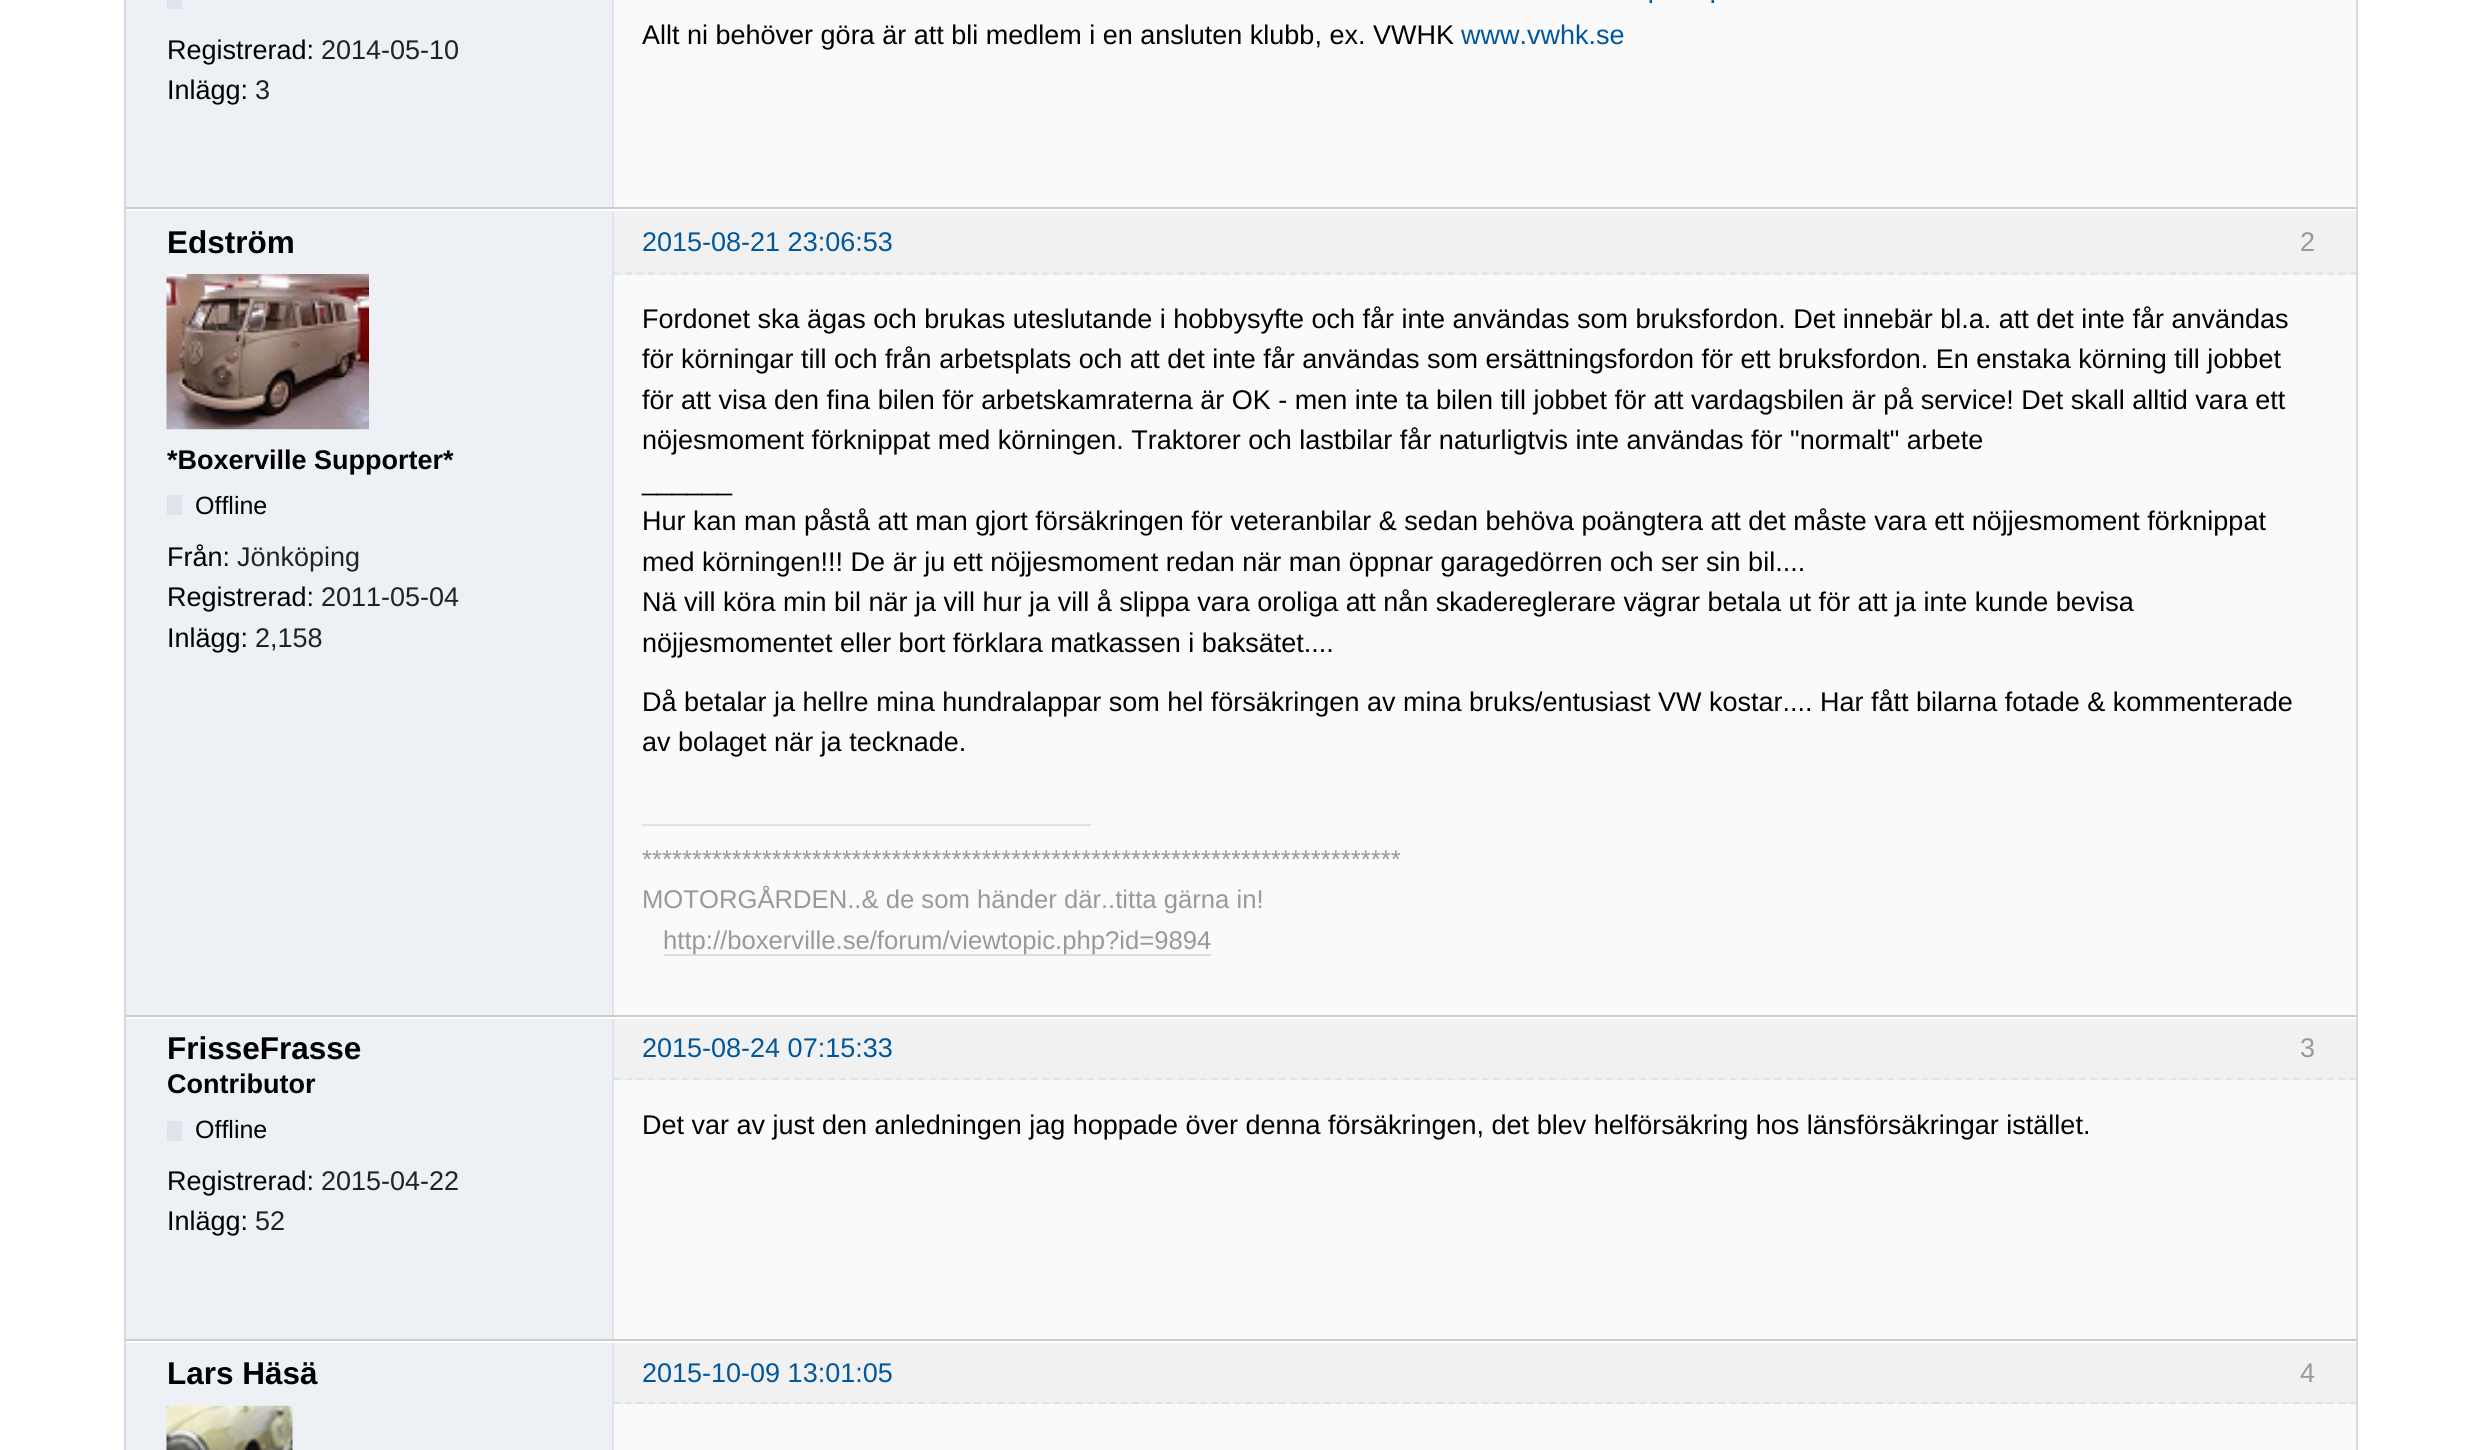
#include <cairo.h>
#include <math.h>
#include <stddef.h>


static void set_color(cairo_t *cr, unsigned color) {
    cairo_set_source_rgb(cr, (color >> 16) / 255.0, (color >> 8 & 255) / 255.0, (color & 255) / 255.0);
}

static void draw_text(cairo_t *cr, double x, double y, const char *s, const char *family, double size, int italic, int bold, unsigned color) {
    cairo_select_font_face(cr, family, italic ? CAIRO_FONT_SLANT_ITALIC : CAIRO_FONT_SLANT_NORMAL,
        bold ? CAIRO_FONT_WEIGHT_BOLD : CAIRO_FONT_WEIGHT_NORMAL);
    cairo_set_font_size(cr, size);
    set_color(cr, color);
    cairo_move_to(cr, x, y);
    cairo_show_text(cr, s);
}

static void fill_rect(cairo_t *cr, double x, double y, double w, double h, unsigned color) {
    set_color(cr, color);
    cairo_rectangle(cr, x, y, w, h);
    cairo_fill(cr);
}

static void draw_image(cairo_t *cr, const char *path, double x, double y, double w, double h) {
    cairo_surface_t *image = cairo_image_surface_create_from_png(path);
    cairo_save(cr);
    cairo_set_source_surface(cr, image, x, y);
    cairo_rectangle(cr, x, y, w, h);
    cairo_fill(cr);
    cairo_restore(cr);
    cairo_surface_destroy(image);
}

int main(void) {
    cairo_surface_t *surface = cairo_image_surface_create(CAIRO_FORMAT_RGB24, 2480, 1450);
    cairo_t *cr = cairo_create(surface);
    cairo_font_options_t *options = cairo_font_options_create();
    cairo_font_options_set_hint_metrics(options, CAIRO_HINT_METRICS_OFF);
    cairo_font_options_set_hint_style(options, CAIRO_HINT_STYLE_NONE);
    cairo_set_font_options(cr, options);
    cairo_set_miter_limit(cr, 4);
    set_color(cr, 0xFFFFFF);
    cairo_paint(cr);
    fill_rect(cr, 2356, 0, 2, 1450, 0xD3DAE1);
    fill_rect(cr, 124, 0, 2, 1450, 0xD3DAE1);
    fill_rect(cr, 126, 0, 486, 207, 0xEDF1F5);
    fill_rect(cr, 126, 207, 2230, 2, 0xCCCCCC);
    fill_rect(cr, 614, 0, 1742, 207, 0xFAFAFA);
    fill_rect(cr, 612, 0, 2, 207, 0xDDE4EB);
    draw_text(cr, 1647, 3, ".", "Liberation Sans", 27, 0, 0, 0x00579C);
    draw_text(cr, 1709, 3, ".", "Liberation Sans", 27, 0, 0, 0x00579C);
    draw_text(cr, 642, 44, "Allt ni behöver göra är att bli medlem i en ansluten klubb, ex. VWHK", "Liberation Sans", 27, 0, 0, 0x000000);
    draw_text(cr, 1461, 44, "www.vwhk.se", "Liberation Sans", 27, 0, 0, 0x00579C);
    fill_rect(cr, 167, 0, 15, 9, 0xDDE4EB);
    draw_text(cr, 167, 59, "Registrerad:", "Liberation Sans", 27, 0, 0, 0x000000);
    draw_text(cr, 321, 59, "2014-05-10", "Liberation Sans", 27, 0, 0, 0x222222);
    draw_text(cr, 167, 99, "Inlägg:", "Liberation Sans", 27, 0, 0, 0x000000);
    draw_text(cr, 255, 99, "3", "Liberation Sans", 27, 0, 0, 0x222222);
    fill_rect(cr, 126, 211, 2230, 804, 0xEDF1F5);
    fill_rect(cr, 126, 1015, 2230, 2, 0xCCCCCC);
    fill_rect(cr, 612, 212, 2, 803, 0xDDE4EB);
    fill_rect(cr, 614, 212, 1742, 63, 0xF1F1F1);
    cairo_new_path(cr);
    cairo_move_to(cr, 614, 273.5);
    cairo_line_to(cr, 2356, 273.5);
    set_color(cr, 0xDDE4EB);
    cairo_set_line_width(cr, 2.2);
    cairo_set_dash(cr, (double[]){6.75, 4.52}, 2, 0);
    cairo_stroke(cr);
    draw_text(cr, 167, 253, "Edström", "Liberation Sans", 31.5, 0, 1, 0x000000);
    draw_text(cr, 642, 251, "2015-08-21 23:06:53", "Liberation Sans", 27, 0, 0, 0x00579C);
    draw_text(cr, 2300, 251, "2", "Liberation Sans", 27, 0, 0, 0x999999);
    fill_rect(cr, 614, 275, 1742, 740, 0xFAFAFA);
    draw_image(cr, "assets/img1.png", 166, 274, 203, 156);
    draw_text(cr, 167, 469, "*Boxerville Supporter*", "Liberation Sans", 27, 0, 1, 0x000000);
    fill_rect(cr, 167, 495, 15, 20, 0xDDE4EB);
    draw_text(cr, 195, 514, "Offline", "Liberation Sans", 25, 0, 0, 0x000000);
    draw_text(cr, 167, 566, "Från:", "Liberation Sans", 27, 0, 0, 0x000000);
    draw_text(cr, 237, 566, "Jönköping", "Liberation Sans", 27, 0, 0, 0x222222);
    draw_text(cr, 167, 606, "Registrerad:", "Liberation Sans", 27, 0, 0, 0x000000);
    draw_text(cr, 321, 606, "2011-05-04", "Liberation Sans", 27, 0, 0, 0x222222);
    draw_text(cr, 167, 647, "Inlägg:", "Liberation Sans", 27, 0, 0, 0x000000);
    draw_text(cr, 255, 647, "2,158", "Liberation Sans", 27, 0, 0, 0x222222);
    draw_text(cr, 642, 328, "Fordonet ska ägas och brukas uteslutande i hobbysyfte och får inte användas som bruksfordon. Det innebär bl.a. att det inte får användas", "Liberation Sans", 27, 0, 0, 0x000000);
    draw_text(cr, 642, 368, "för körningar till och från arbetsplats och att det inte får användas som ersättningsfordon för ett bruksfordon. En enstaka körning till jobbet", "Liberation Sans", 27, 0, 0, 0x000000);
    draw_text(cr, 642, 409, "för att visa den fina bilen för arbetskamraterna är OK - men inte ta bilen till jobbet för att vardagsbilen är på service! Det skall alltid vara ett", "Liberation Sans", 27, 0, 0, 0x000000);
    draw_text(cr, 642, 449, "nöjesmoment förknippat med körningen. Traktorer och lastbilar får naturligtvis inte användas för \"normalt\" arbete", "Liberation Sans", 27, 0, 0, 0x000000);
    draw_text(cr, 642, 490, "______", "Liberation Sans", 27, 0, 0, 0x000000);
    draw_text(cr, 642, 530, "Hur kan man påstå att man gjort försäkringen för veteranbilar & sedan behöva poängtera att det måste vara ett nöjjesmoment förknippat", "Liberation Sans", 27, 0, 0, 0x000000);
    draw_text(cr, 642, 571, "med körningen!!! De är ju ett nöjjesmoment redan när man öppnar garagedörren och ser sin bil....", "Liberation Sans", 27, 0, 0, 0x000000);
    draw_text(cr, 642, 611, "Nä vill köra min bil när ja vill hur ja vill å slippa vara oroliga att nån skadereglerare vägrar betala ut för att ja inte kunde bevisa", "Liberation Sans", 27, 0, 0, 0x000000);
    draw_text(cr, 642, 652, "nöjjesmomentet eller bort förklara matkassen i baksätet....", "Liberation Sans", 27, 0, 0, 0x000000);
    draw_text(cr, 642, 711, "Då betalar ja hellre mina hundralappar som hel försäkringen av mina bruks/entusiast VW kostar.... Har fått bilarna fotade & kommenterade", "Liberation Sans", 27, 0, 0, 0x000000);
    draw_text(cr, 642, 751, "av bolaget när ja tecknade.", "Liberation Sans", 27, 0, 0, 0x000000);
    fill_rect(cr, 641, 824, 450, 2, 0xDDE4EB);
    draw_text(cr, 642, 868, "****************************************************************************", "Liberation Sans", 25.65, 0, 0, 0x999999);
    draw_text(cr, 642, 908, "MOTORGÅRDEN..& de som händer där..titta gärna in!", "Liberation Sans", 25.65, 0, 0, 0x999999);
    fill_rect(cr, 664, 954, 547, 2, 0xDDDDDD);
    draw_text(cr, 663, 949, "http://boxerville.se/forum/viewtopic.php?id=9894", "Liberation Sans", 25.65, 0, 0, 0x999999);
    fill_rect(cr, 126, 1019, 486, 320, 0xEDF1F5);
    fill_rect(cr, 126, 1339, 2230, 2, 0xCCCCCC);
    fill_rect(cr, 614, 1080, 1742, 259, 0xFAFAFA);
    fill_rect(cr, 612, 1019, 2, 320, 0xDDE4EB);
    fill_rect(cr, 614, 1019, 1742, 61, 0xF1F1F1);
    cairo_new_path(cr);
    cairo_move_to(cr, 614, 1079);
    cairo_line_to(cr, 2356, 1079);
    set_color(cr, 0xDDE4EB);
    cairo_stroke(cr);
    draw_text(cr, 167, 1059, "FrisseFrasse", "Liberation Sans", 31.5, 0, 1, 0x000000);
    draw_text(cr, 642, 1057, "2015-08-24 07:15:33", "Liberation Sans", 27, 0, 0, 0x00579C);
    draw_text(cr, 2300, 1057, "3", "Liberation Sans", 27, 0, 0, 0x999999);
    draw_text(cr, 167, 1093, "Contributor", "Liberation Sans", 27, 0, 1, 0x000000);
    fill_rect(cr, 167, 1121, 15, 20, 0xDDE4EB);
    draw_text(cr, 195, 1138, "Offline", "Liberation Sans", 25, 0, 0, 0x000000);
    draw_text(cr, 167, 1190, "Registrerad:", "Liberation Sans", 27, 0, 0, 0x000000);
    draw_text(cr, 321, 1190, "2015-04-22", "Liberation Sans", 27, 0, 0, 0x222222);
    draw_text(cr, 167, 1230, "Inlägg:", "Liberation Sans", 27, 0, 0, 0x000000);
    draw_text(cr, 255, 1230, "52", "Liberation Sans", 27, 0, 0, 0x222222);
    draw_text(cr, 642, 1134, "Det var av just den anledningen jag hoppade över denna försäkringen, det blev helförsäkring hos länsförsäkringar istället.", "Liberation Sans", 27, 0, 0, 0x000000);
    fill_rect(cr, 126, 1343, 486, 107, 0xEDF1F5);
    fill_rect(cr, 614, 1404, 1742, 46, 0xFAFAFA);
    fill_rect(cr, 612, 1343, 2, 107, 0xDDE4EB);
    fill_rect(cr, 614, 1343, 1742, 61, 0xF1F1F1);
    cairo_new_path(cr);
    cairo_move_to(cr, 614, 1403);
    cairo_line_to(cr, 2356, 1403);
    set_color(cr, 0xDDE4EB);
    cairo_stroke(cr);
    draw_text(cr, 167, 1384, "Lars Häsä", "Liberation Sans", 31.5, 0, 1, 0x000000);
    draw_text(cr, 642, 1382, "2015-10-09 13:01:05", "Liberation Sans", 27, 0, 0, 0x00579C);
    draw_text(cr, 2300, 1382, "4", "Liberation Sans", 27, 0, 0, 0x999999);
    draw_image(cr, "assets/img2.png", 166, 1405, 127, 45);
    cairo_surface_write_to_png(surface, "output.png");
    cairo_font_options_destroy(options);
    cairo_destroy(cr);
    cairo_surface_destroy(surface);
    return 0;
}
